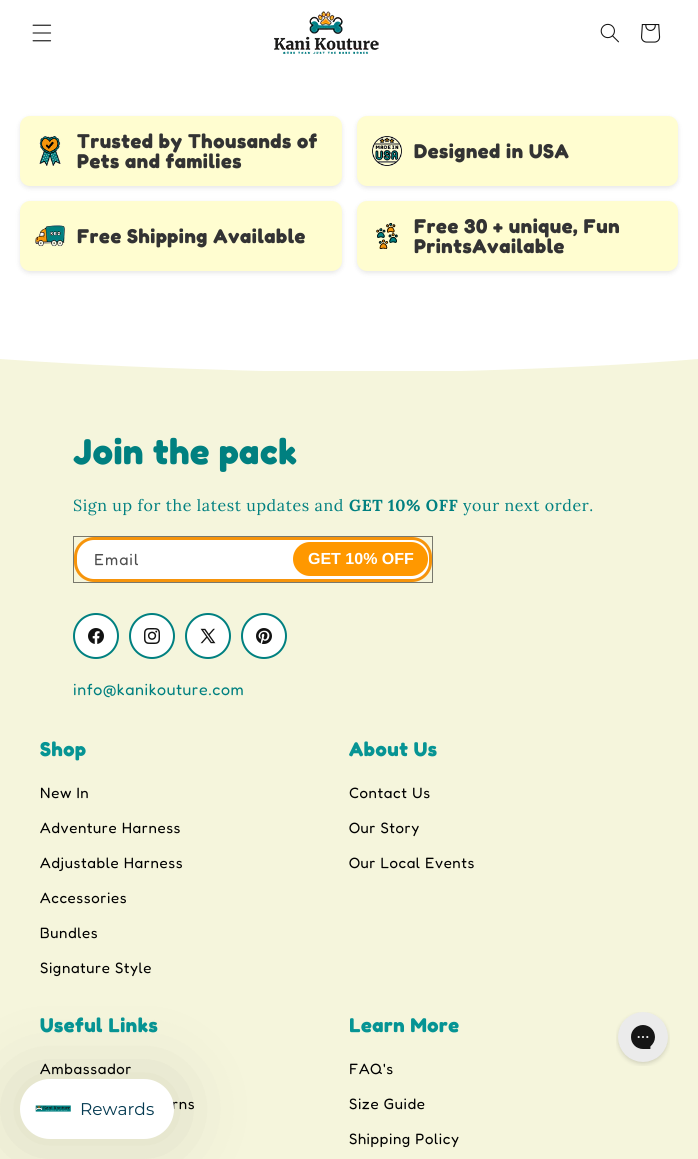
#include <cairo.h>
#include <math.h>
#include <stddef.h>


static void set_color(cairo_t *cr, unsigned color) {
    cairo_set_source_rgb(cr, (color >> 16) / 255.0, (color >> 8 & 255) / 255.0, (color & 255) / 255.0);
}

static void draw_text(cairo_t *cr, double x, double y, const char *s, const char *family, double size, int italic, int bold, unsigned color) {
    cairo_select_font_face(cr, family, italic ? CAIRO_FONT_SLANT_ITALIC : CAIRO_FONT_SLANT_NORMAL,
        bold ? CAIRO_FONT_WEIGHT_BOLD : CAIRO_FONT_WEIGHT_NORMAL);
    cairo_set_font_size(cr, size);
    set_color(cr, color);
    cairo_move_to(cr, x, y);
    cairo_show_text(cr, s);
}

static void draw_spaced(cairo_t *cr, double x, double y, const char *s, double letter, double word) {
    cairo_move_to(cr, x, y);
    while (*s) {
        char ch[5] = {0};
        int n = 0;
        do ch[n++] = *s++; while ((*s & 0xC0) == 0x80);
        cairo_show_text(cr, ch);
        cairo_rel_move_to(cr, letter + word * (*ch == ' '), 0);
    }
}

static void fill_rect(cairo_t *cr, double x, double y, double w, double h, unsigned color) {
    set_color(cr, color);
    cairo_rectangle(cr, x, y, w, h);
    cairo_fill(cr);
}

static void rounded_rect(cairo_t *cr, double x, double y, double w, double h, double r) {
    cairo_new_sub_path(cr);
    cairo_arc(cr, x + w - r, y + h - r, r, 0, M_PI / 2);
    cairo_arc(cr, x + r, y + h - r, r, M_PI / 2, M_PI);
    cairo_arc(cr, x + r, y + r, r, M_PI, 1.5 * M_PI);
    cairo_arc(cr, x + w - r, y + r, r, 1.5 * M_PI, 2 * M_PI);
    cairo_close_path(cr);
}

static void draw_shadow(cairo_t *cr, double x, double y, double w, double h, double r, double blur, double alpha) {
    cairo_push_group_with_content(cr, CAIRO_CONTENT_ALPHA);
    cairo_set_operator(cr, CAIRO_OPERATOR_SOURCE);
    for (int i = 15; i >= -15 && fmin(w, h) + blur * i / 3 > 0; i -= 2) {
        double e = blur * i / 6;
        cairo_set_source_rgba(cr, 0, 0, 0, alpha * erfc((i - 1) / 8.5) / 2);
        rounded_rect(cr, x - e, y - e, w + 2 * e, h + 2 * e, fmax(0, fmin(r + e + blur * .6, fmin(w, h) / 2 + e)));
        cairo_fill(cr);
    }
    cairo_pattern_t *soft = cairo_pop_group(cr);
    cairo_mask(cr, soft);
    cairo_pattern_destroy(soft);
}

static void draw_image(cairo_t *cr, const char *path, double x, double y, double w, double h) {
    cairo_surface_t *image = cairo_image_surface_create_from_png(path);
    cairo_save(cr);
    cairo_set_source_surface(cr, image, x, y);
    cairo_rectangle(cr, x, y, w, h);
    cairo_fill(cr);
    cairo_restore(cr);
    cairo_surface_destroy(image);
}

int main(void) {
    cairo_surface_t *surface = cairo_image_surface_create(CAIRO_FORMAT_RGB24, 698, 1159);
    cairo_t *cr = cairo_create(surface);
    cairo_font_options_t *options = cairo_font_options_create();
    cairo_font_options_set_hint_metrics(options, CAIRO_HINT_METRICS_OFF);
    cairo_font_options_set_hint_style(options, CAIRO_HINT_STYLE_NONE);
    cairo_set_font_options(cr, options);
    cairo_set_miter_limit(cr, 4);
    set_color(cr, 0xFFFFFF);
    cairo_paint(cr);
    draw_image(cr, "assets/img1.png", 32, 24, 20, 18);
    draw_image(cr, "assets/img2.png", 274, 11, 105, 43);
    draw_image(cr, "assets/img3.png", 600, 23, 19, 20);
    draw_image(cr, "assets/img4.png", 641, 24, 20, 19);
    set_color(cr, 0x000000);
    draw_shadow(cr, 20, 118, 322, 70, 10, 2.5, 0.1);
    set_color(cr, 0xFFFDD0);
    rounded_rect(cr, 20, 116, 322, 70, 10);
    cairo_fill(cr);
    draw_image(cr, "assets/img5.png", 39, 136, 22, 30);
    cairo_select_font_face(cr, "Fredoka", CAIRO_FONT_SLANT_NORMAL, CAIRO_FONT_WEIGHT_BOLD);
    cairo_set_font_size(cr, 20);
    set_color(cr, 0x333333);
    draw_spaced(cr, 77, 148, "Trusted by Thousands of", 0.6, 0);
    draw_spaced(cr, 77, 168, "Pets and families", 0.6, 0);
    set_color(cr, 0x000000);
    draw_shadow(cr, 357, 118, 321, 70, 10, 2.5, 0.1);
    set_color(cr, 0xFFFDD0);
    rounded_rect(cr, 357, 116, 321, 70, 10);
    cairo_fill(cr);
    draw_image(cr, "assets/img6.png", 372, 136, 30, 30);
    set_color(cr, 0x333333);
    draw_spaced(cr, 414, 158, "Designed in USA", 0.6, 0);
    set_color(cr, 0x000000);
    draw_shadow(cr, 20, 203, 322, 70, 10, 2.5, 0.1);
    set_color(cr, 0xFFFDD0);
    rounded_rect(cr, 20, 201, 322, 70, 10);
    cairo_fill(cr);
    draw_image(cr, "assets/img7.png", 35, 225, 30, 22);
    set_color(cr, 0x333333);
    draw_spaced(cr, 77, 243, "Free Shipping Available", 0.6, 0);
    set_color(cr, 0x000000);
    draw_shadow(cr, 357, 203, 321, 70, 10, 2.5, 0.1);
    set_color(cr, 0xFFFDD0);
    rounded_rect(cr, 357, 201, 321, 70, 10);
    cairo_fill(cr);
    draw_image(cr, "assets/img8.png", 376, 223, 22, 26);
    set_color(cr, 0x333333);
    draw_spaced(cr, 414, 233, "Free 30 + unique, Fun", 0.6, 0);
    draw_spaced(cr, 414, 253, "PrintsAvailable", 0.6, 0);
    fill_rect(cr, 0, 371, 698, 788, 0xF5F5DC);
    cairo_new_path(cr);
    cairo_move_to(cr, 366, 373);
    cairo_curve_to(cr, 366, 373, 558, 371, 698, 359);
    cairo_line_to(cr, 698, 373);
    cairo_line_to(cr, 0, 373);
    cairo_line_to(cr, 0, 359);
    cairo_curve_to(cr, 163, 371, 366, 373, 366, 373);
    cairo_close_path(cr);
    cairo_fill(cr);
    cairo_set_font_size(cr, 36);
    set_color(cr, 0x008080);
    draw_spaced(cr, 73, 464, "Join the pack", 0.6, 0);
    cairo_select_font_face(cr, "Lora", CAIRO_FONT_SLANT_NORMAL, CAIRO_FONT_WEIGHT_NORMAL);
    cairo_set_font_size(cr, 16);
    draw_spaced(cr, 73, 511, "Sign up for the latest updates and", 0.6, 0);
    cairo_select_font_face(cr, "Lora", CAIRO_FONT_SLANT_NORMAL, CAIRO_FONT_WEIGHT_BOLD);
    draw_spaced(cr, 349, 511, "GET 10% OFF", 0.6, 0);
    cairo_select_font_face(cr, "Lora", CAIRO_FONT_SLANT_NORMAL, CAIRO_FONT_WEIGHT_NORMAL);
    draw_spaced(cr, 463, 511, "your next order.", 0.6, 0);
    set_color(cr, 0xFFFFFF);
    rounded_rect(cr, 75.5, 538.5, 355, 42, 18.5);
    cairo_fill_preserve(cr);
    set_color(cr, 0xF6940B);
    cairo_set_line_width(cr, 3);
    cairo_stroke(cr);
    set_color(cr, 0xFF9800);
    rounded_rect(cr, 293, 542, 135, 34, 17);
    cairo_fill(cr);
    cairo_rectangle(cr, 73.5, 536.5, 359, 46);
    set_color(cr, 0x78786D);
    cairo_set_line_width(cr, 1);
    cairo_stroke(cr);
    cairo_select_font_face(cr, "Fredoka", CAIRO_FONT_SLANT_NORMAL, CAIRO_FONT_WEIGHT_NORMAL);
    set_color(cr, 0x4D4D4D);
    draw_spaced(cr, 94, 565, "Email", 1, 0);
    draw_text(cr, 308, 564, "GET 10% OFF", "Liberation Sans", 16, 0, 1, 0xFFFFFF);
    cairo_new_path(cr);
    cairo_arc(cr, 96, 636, 22, 0, 2 * M_PI);
    cairo_fill_preserve(cr);
    set_color(cr, 0x008080);
    cairo_set_line_width(cr, 2);
    cairo_stroke(cr);
    draw_image(cr, "assets/img9.png", 88, 628, 16, 16);
    set_color(cr, 0xFFFFFF);
    cairo_arc(cr, 152, 636, 22, 0, 2 * M_PI);
    cairo_fill_preserve(cr);
    set_color(cr, 0x008080);
    cairo_stroke(cr);
    draw_image(cr, "assets/img10.png", 144, 628, 16, 16);
    set_color(cr, 0xFFFFFF);
    cairo_arc(cr, 208, 636, 22, 0, 2 * M_PI);
    cairo_fill_preserve(cr);
    set_color(cr, 0x008080);
    cairo_stroke(cr);
    draw_image(cr, "assets/img11.png", 200, 628, 16, 16);
    set_color(cr, 0xFFFFFF);
    cairo_arc(cr, 264, 636, 22, 0, 2 * M_PI);
    cairo_fill_preserve(cr);
    set_color(cr, 0x008080);
    cairo_stroke(cr);
    draw_image(cr, "assets/img12.png", 256, 628, 16, 16);
    cairo_select_font_face(cr, "Fredoka", CAIRO_FONT_SLANT_NORMAL, CAIRO_FONT_WEIGHT_NORMAL);
    draw_spaced(cr, 73, 695, "info@kanikouture.com", 0.6, 0);
    cairo_select_font_face(cr, "Fredoka", CAIRO_FONT_SLANT_NORMAL, CAIRO_FONT_WEIGHT_BOLD);
    cairo_set_font_size(cr, 20);
    set_color(cr, 0x069494);
    draw_spaced(cr, 40, 756, "Shop", 0.6, 0);
    cairo_select_font_face(cr, "Fredoka", CAIRO_FONT_SLANT_NORMAL, CAIRO_FONT_WEIGHT_NORMAL);
    cairo_set_font_size(cr, 15);
    set_color(cr, 0x000000);
    draw_spaced(cr, 40, 798, "New In", 0.6, 0);
    draw_spaced(cr, 40, 833, "Adventure Harness", 0.6, 0);
    draw_spaced(cr, 40, 868, "Adjustable Harness", 0.6, 0);
    draw_spaced(cr, 40, 903, "Accessories", 0.6, 0);
    draw_spaced(cr, 40, 938, "Bundles", 0.6, 0);
    draw_spaced(cr, 40, 973, "Signature Style", 0.6, 0);
    cairo_select_font_face(cr, "Fredoka", CAIRO_FONT_SLANT_NORMAL, CAIRO_FONT_WEIGHT_BOLD);
    cairo_set_font_size(cr, 20);
    set_color(cr, 0x069494);
    draw_spaced(cr, 349, 756, "About Us", 0.6, 0);
    cairo_select_font_face(cr, "Fredoka", CAIRO_FONT_SLANT_NORMAL, CAIRO_FONT_WEIGHT_NORMAL);
    cairo_set_font_size(cr, 15);
    set_color(cr, 0x000000);
    draw_spaced(cr, 349, 798, "Contact Us", 0.6, 0);
    draw_spaced(cr, 349, 833, "Our Story", 0.6, 0);
    draw_spaced(cr, 349, 868, "Our Local Events", 0.6, 0);
    cairo_select_font_face(cr, "Fredoka", CAIRO_FONT_SLANT_NORMAL, CAIRO_FONT_WEIGHT_BOLD);
    cairo_set_font_size(cr, 20);
    set_color(cr, 0x069494);
    draw_spaced(cr, 40, 1032, "Useful Links", 0.6, 0);
    cairo_select_font_face(cr, "Fredoka", CAIRO_FONT_SLANT_NORMAL, CAIRO_FONT_WEIGHT_NORMAL);
    cairo_set_font_size(cr, 15);
    set_color(cr, 0x000000);
    draw_spaced(cr, 40, 1074, "Ambassador", 0.6, 0);
    draw_spaced(cr, 172, 1109, "rns", 0.6, 0);
    cairo_select_font_face(cr, "Fredoka", CAIRO_FONT_SLANT_NORMAL, CAIRO_FONT_WEIGHT_BOLD);
    cairo_set_font_size(cr, 20);
    set_color(cr, 0x069494);
    draw_spaced(cr, 349, 1032, "Learn More", 0.6, 0);
    cairo_select_font_face(cr, "Fredoka", CAIRO_FONT_SLANT_NORMAL, CAIRO_FONT_WEIGHT_NORMAL);
    cairo_set_font_size(cr, 15);
    set_color(cr, 0x000000);
    draw_spaced(cr, 349, 1074, "FAQ's", 0.6, 0);
    draw_spaced(cr, 349, 1109, "Size Guide", 0.6, 0);
    draw_spaced(cr, 349, 1144, "Shipping Policy", 0.6, 0);
    draw_image(cr, "assets/img13.png", 616, 1012, 54, 54);
    set_color(cr, 0x000000);
    draw_shadow(cr, 20, 1079, 154, 60, 30, 40, 0.12);
    set_color(cr, 0xFFFFFF);
    rounded_rect(cr, 20, 1079, 154, 60, 30);
    cairo_fill(cr);
    draw_image(cr, "assets/img14.png", 35, 1105, 36, 7);
    draw_text(cr, 80, 1115, "Rewards", "Montserrat", 17, 0, 0, 0x033950);
    cairo_surface_write_to_png(surface, "output.png");
    cairo_font_options_destroy(options);
    cairo_destroy(cr);
    cairo_surface_destroy(surface);
    return 0;
}
